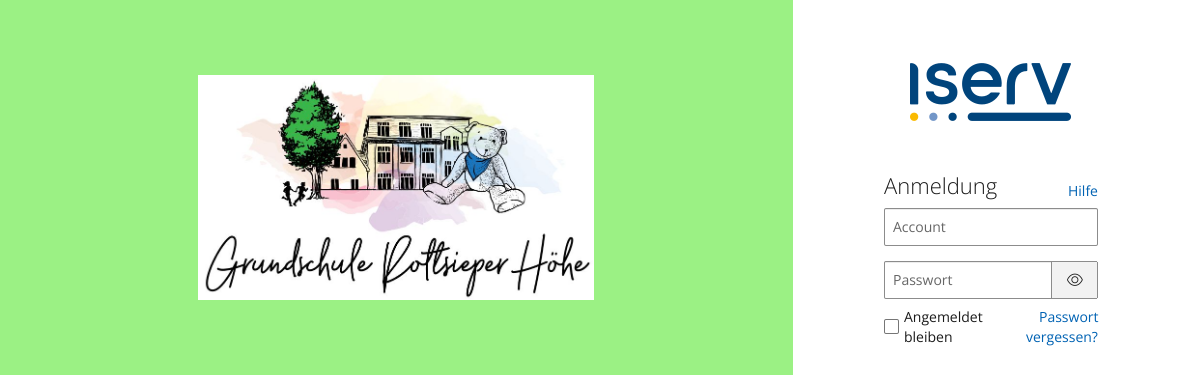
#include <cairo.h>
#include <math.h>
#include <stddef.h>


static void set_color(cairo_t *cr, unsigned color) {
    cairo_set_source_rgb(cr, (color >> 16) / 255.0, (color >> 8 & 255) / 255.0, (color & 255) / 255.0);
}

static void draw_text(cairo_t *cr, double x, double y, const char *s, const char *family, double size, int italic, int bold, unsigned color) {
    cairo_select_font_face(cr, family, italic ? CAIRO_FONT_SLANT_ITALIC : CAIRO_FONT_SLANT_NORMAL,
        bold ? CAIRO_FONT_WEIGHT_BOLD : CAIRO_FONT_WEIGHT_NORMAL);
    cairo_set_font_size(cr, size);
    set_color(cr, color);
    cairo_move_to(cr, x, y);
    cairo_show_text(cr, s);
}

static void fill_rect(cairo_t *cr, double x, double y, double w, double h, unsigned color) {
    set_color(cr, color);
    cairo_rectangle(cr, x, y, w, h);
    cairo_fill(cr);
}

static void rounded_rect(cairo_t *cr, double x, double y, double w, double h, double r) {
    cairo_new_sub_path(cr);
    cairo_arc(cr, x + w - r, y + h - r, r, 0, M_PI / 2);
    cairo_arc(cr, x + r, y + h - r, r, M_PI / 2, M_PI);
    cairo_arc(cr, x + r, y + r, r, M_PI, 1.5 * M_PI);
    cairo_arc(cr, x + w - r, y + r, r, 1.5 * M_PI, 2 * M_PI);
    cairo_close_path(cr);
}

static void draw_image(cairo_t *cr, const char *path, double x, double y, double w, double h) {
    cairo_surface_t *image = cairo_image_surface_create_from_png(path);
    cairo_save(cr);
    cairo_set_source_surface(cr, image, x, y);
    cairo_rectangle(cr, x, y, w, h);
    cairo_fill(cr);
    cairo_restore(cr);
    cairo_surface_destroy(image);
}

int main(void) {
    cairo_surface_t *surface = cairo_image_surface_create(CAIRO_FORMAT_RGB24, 1189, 375);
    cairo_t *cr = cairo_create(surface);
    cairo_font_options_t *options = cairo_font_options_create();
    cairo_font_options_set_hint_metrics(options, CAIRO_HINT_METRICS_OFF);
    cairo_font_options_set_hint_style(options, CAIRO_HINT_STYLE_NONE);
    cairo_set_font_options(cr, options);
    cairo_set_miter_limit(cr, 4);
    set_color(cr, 0xFFFFFF);
    cairo_paint(cr);
    fill_rect(cr, 0, 0, 793, 375, 0x9BF184);
    draw_image(cr, "assets/img1.png", 198, 75, 396, 225);
    draw_image(cr, "assets/img2.png", 910, 63, 161, 58);
    draw_text(cr, 884, 194, "Anmeldung", "Open Sans Light", 22, 0, 0, 0x1A1A1A);
    draw_text(cr, 1068, 196, "Hilfe", "Open Sans", 14, 0, 0, 0x0062B3);
    set_color(cr, 0xECECEC);
    cairo_new_path(cr);
    cairo_move_to(cr, 886, 210);
    cairo_line_to(cr, 1097, 210);
    cairo_line_to(cr, 1097, 211);
    cairo_line_to(cr, 1097, 209);
    cairo_line_to(cr, 1096, 209);
    cairo_line_to(cr, 886, 209);
    cairo_curve_to(cr, 885, 209, 885, 210, 885, 211);
    cairo_curve_to(cr, 885, 210, 885, 210, 886, 210);
    cairo_close_path(cr);
    cairo_fill(cr);
    rounded_rect(cr, 884.5, 208.5, 213, 37, 1.5);
    set_color(cr, 0x8C8C8C);
    cairo_set_line_width(cr, 1);
    cairo_stroke(cr);
    draw_text(cr, 893, 232, "Account", "Open Sans", 14, 0, 0, 0x666666);
    set_color(cr, 0xECECEC);
    cairo_new_path(cr);
    cairo_move_to(cr, 886, 263);
    cairo_line_to(cr, 1051, 263);
    cairo_line_to(cr, 1051, 262);
    cairo_line_to(cr, 886, 262);
    cairo_curve_to(cr, 885, 262, 885, 263, 885, 264);
    cairo_curve_to(cr, 885, 263, 885, 263, 886, 263);
    cairo_close_path(cr);
    cairo_fill(cr);
    cairo_new_path(cr);
    cairo_move_to(cr, 886, 261.5);
    cairo_line_to(cr, 1051.5, 261.5);
    cairo_line_to(cr, 1051.5, 298.5);
    cairo_line_to(cr, 886, 298.5);
    cairo_curve_to(cr, 885, 298.5, 884.5, 298, 884.5, 297);
    cairo_line_to(cr, 884.5, 263);
    cairo_curve_to(cr, 884.5, 262, 885, 261.5, 886, 261.5);
    cairo_close_path(cr);
    set_color(cr, 0x8C8C8C);
    cairo_stroke(cr);
    draw_text(cr, 893, 285, "Passwort", "Open Sans", 14, 0, 0, 0x666666);
    set_color(cr, 0xF2F2F2);
    cairo_new_path(cr);
    cairo_move_to(cr, 1052, 261);
    cairo_line_to(cr, 1096, 261);
    cairo_curve_to(cr, 1097, 261, 1098, 262, 1098, 263);
    cairo_line_to(cr, 1098, 297);
    cairo_curve_to(cr, 1098, 298, 1097, 299, 1096, 299);
    cairo_line_to(cr, 1052, 299);
    cairo_close_path(cr);
    cairo_fill(cr);
    fill_rect(cr, 1052, 261, 45, 1, 0x8C8C8C);
    fill_rect(cr, 1097, 262, 1, 36, 0x8C8C8C);
    fill_rect(cr, 1052, 298, 45, 1, 0x8C8C8C);
    draw_image(cr, "assets/img3.png", 1067, 273, 16, 13);
    rounded_rect(cr, 884.5, 319.5, 14, 14, 1.5);
    set_color(cr, 0x767676);
    cairo_stroke(cr);
    draw_text(cr, 904, 322, "Angemeldet", "Open Sans", 14, 0, 0, 0x1A1A1A);
    draw_text(cr, 904, 342, "bleiben", "Open Sans", 14, 0, 0, 0x1A1A1A);
    draw_text(cr, 1039, 322, "Passwort", "Open Sans", 14, 0, 0, 0x0062B3);
    draw_text(cr, 1026, 342, "vergessen?", "Open Sans", 14, 0, 0, 0x0062B3);
    cairo_surface_write_to_png(surface, "output.png");
    cairo_font_options_destroy(options);
    cairo_destroy(cr);
    cairo_surface_destroy(surface);
    return 0;
}
